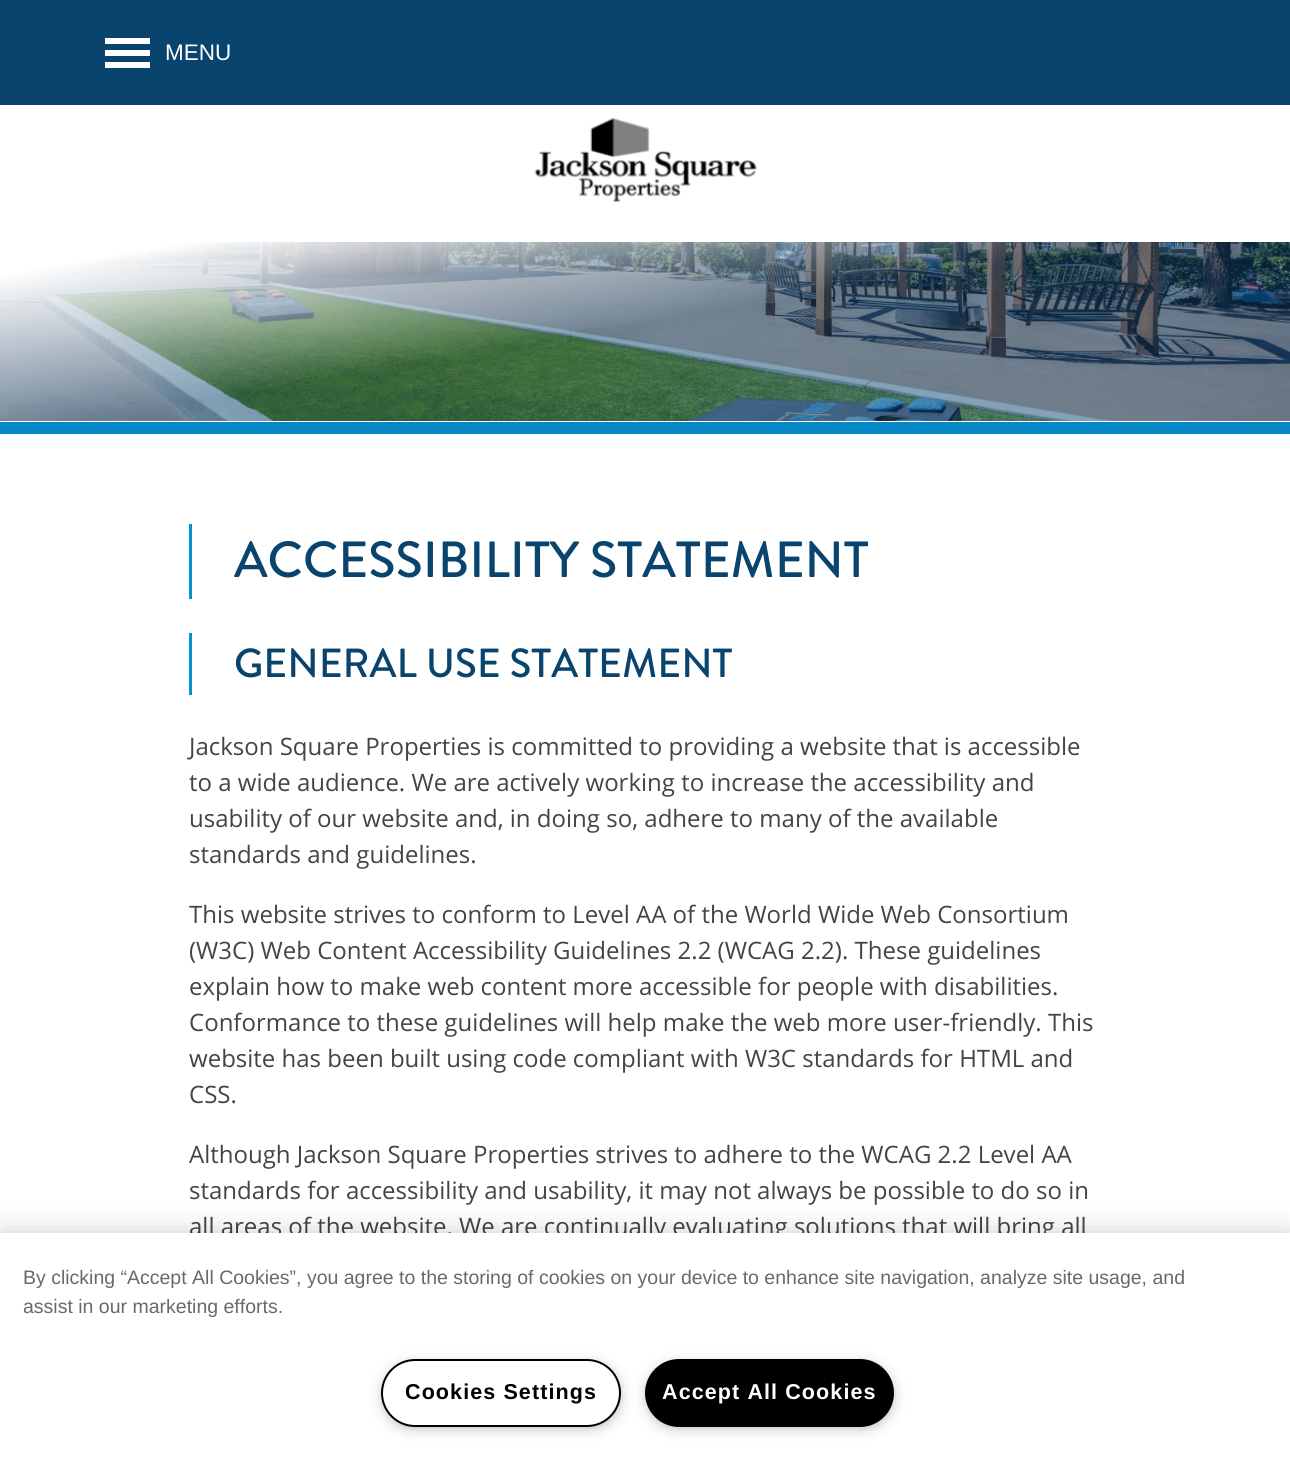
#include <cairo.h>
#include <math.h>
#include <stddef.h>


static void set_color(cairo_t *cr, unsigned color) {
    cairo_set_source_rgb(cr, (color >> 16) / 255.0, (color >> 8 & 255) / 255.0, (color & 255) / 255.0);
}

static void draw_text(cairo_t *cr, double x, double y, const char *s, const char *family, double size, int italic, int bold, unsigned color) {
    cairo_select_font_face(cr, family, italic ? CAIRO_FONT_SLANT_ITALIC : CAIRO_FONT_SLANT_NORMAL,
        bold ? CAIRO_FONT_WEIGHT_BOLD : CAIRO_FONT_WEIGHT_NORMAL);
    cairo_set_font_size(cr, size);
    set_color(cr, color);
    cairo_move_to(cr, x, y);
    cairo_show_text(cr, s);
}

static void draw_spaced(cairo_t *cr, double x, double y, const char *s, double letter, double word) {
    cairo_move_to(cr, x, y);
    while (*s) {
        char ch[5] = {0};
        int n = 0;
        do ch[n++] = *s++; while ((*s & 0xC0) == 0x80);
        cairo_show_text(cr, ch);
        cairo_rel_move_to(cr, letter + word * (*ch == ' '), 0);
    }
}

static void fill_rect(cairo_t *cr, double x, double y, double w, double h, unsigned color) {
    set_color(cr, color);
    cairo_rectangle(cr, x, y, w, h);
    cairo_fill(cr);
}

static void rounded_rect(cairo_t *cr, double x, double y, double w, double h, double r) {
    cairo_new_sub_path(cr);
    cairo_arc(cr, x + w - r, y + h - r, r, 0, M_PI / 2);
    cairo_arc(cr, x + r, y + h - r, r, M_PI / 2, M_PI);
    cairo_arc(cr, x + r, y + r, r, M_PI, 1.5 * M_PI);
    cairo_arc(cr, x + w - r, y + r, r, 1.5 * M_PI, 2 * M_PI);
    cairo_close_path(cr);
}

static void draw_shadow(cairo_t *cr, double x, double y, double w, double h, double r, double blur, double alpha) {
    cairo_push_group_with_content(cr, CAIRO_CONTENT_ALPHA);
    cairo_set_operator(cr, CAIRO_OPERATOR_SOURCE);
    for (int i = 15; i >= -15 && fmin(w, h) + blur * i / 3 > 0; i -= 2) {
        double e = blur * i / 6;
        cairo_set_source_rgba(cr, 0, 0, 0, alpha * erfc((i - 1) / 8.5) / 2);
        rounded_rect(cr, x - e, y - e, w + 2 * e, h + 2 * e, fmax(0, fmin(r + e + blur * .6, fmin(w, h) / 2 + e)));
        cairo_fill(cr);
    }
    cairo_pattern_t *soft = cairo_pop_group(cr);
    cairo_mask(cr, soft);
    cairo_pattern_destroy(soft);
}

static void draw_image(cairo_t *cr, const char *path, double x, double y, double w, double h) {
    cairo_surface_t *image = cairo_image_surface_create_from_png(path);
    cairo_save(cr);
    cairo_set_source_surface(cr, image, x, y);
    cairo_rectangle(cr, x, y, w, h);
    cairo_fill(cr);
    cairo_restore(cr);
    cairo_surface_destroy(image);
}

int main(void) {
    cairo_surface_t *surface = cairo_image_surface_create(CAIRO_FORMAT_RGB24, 1290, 1470);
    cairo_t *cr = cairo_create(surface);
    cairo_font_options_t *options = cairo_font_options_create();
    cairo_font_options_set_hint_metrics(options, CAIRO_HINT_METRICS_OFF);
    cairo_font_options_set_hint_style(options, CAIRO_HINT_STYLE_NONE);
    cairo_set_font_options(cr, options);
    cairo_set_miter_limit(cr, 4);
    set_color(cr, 0xFFFFFF);
    cairo_paint(cr);
    fill_rect(cr, 0, 0, 1290, 105, 0x08446E);
    fill_rect(cr, 105, 38, 45, 6, 0xFFFFFF);
    fill_rect(cr, 105, 50, 45, 6, 0xFFFFFF);
    fill_rect(cr, 105, 62, 45, 6, 0xFFFFFF);
    draw_text(cr, 165, 60, "MENU", "Liberation Sans", 22.5, 0, 0, 0xFFFFFF);
    draw_image(cr, "assets/img1.png", 534, 117, 223, 86);
    draw_image(cr, "assets/img2.png", 0, 242, 1290, 179);
    fill_rect(cr, 0, 422, 1290, 12, 0x0588C5);
    fill_rect(cr, 189, 524, 3, 75, 0x0590CF);
    draw_text(cr, 234, 577, "ACCESSIBILITY STATEMENT", "Brandon Grotesque Medium", 50.75, 0, 0, 0x08446E);
    fill_rect(cr, 189, 633, 3, 62, 0x0590CF);
    draw_text(cr, 234, 677, "GENERAL USE STATEMENT", "Brandon Grotesque Medium", 40.6, 0, 0, 0x08446E);
    draw_text(cr, 189, 755, "Jackson Square Properties is committed to providing a website that is accessible", "Open Sans", 24, 0, 0, 0x444444);
    draw_text(cr, 189, 791, "to a wide audience. We are actively working to increase the accessibility and", "Open Sans", 24, 0, 0, 0x444444);
    draw_text(cr, 189, 827, "usability of our website and, in doing so, adhere to many of the available", "Open Sans", 24, 0, 0, 0x444444);
    draw_text(cr, 189, 863, "standards and guidelines.", "Open Sans", 24, 0, 0, 0x444444);
    draw_text(cr, 189, 923, "This website strives to conform to Level AA of the World Wide Web Consortium", "Open Sans", 24, 0, 0, 0x444444);
    draw_text(cr, 189, 959, "(W3C) Web Content Accessibility Guidelines 2.2 (WCAG 2.2). These guidelines", "Open Sans", 24, 0, 0, 0x444444);
    draw_text(cr, 189, 995, "explain how to make web content more accessible for people with disabilities.", "Open Sans", 24, 0, 0, 0x444444);
    draw_text(cr, 189, 1031, "Conformance to these guidelines will help make the web more user-friendly. This", "Open Sans", 24, 0, 0, 0x444444);
    draw_text(cr, 189, 1067, "website has been built using code compliant with W3C standards for HTML and", "Open Sans", 24, 0, 0, 0x444444);
    draw_text(cr, 189, 1103, "CSS.", "Open Sans", 24, 0, 0, 0x444444);
    draw_text(cr, 189, 1163, "Although Jackson Square Properties strives to adhere to the WCAG 2.2 Level AA", "Open Sans", 24, 0, 0, 0x444444);
    draw_text(cr, 189, 1199, "standards for accessibility and usability, it may not always be possible to do so in", "Open Sans", 24, 0, 0, 0x444444);
    draw_text(cr, 189, 1235, "all areas of the website. We are continually evaluating solutions that will bring all", "Open Sans", 24, 0, 0, 0x444444);
    set_color(cr, 0x000000);
    draw_shadow(cr, 0, 1233, 1290, 237, 0, 13.5, 0.2);
    fill_rect(cr, 0, 1233, 1290, 237, 0xFFFFFF);
    draw_text(cr, 23, 1284, "By clicking “Accept All Cookies”, you agree to the storing of cookies on your device to enhance site navigation, analyze site usage, and", "Liberation Sans", 19.5, 0, 0, 0x696969);
    draw_text(cr, 23, 1313, "assist in our marketing efforts.", "Liberation Sans", 19.5, 0, 0, 0x696969);
    set_color(cr, 0x999999);
    draw_shadow(cr, 386, 1367, 231, 58, 29, 7.5, 1);
    set_color(cr, 0xFFFFFF);
    rounded_rect(cr, 382, 1360, 238, 66, 33);
    cairo_fill_preserve(cr);
    set_color(cr, 0x000000);
    cairo_stroke(cr);
    cairo_select_font_face(cr, "Liberation Sans", CAIRO_FONT_SLANT_NORMAL, CAIRO_FONT_WEIGHT_BOLD);
    cairo_set_font_size(cr, 21.5);
    draw_spaced(cr, 405, 1399, "Cookies Settings", 1.1, 0);
    set_color(cr, 0x999999);
    draw_shadow(cr, 650, 1367, 240, 58, 29, 7.5, 1);
    set_color(cr, 0x000000);
    rounded_rect(cr, 646, 1360, 247, 66, 33);
    cairo_fill_preserve(cr);
    cairo_stroke(cr);
    set_color(cr, 0xFFFFFF);
    draw_spaced(cr, 662, 1399, "Accept All Cookies", 1.1, 0);
    cairo_surface_write_to_png(surface, "output.png");
    cairo_font_options_destroy(options);
    cairo_destroy(cr);
    cairo_surface_destroy(surface);
    return 0;
}
